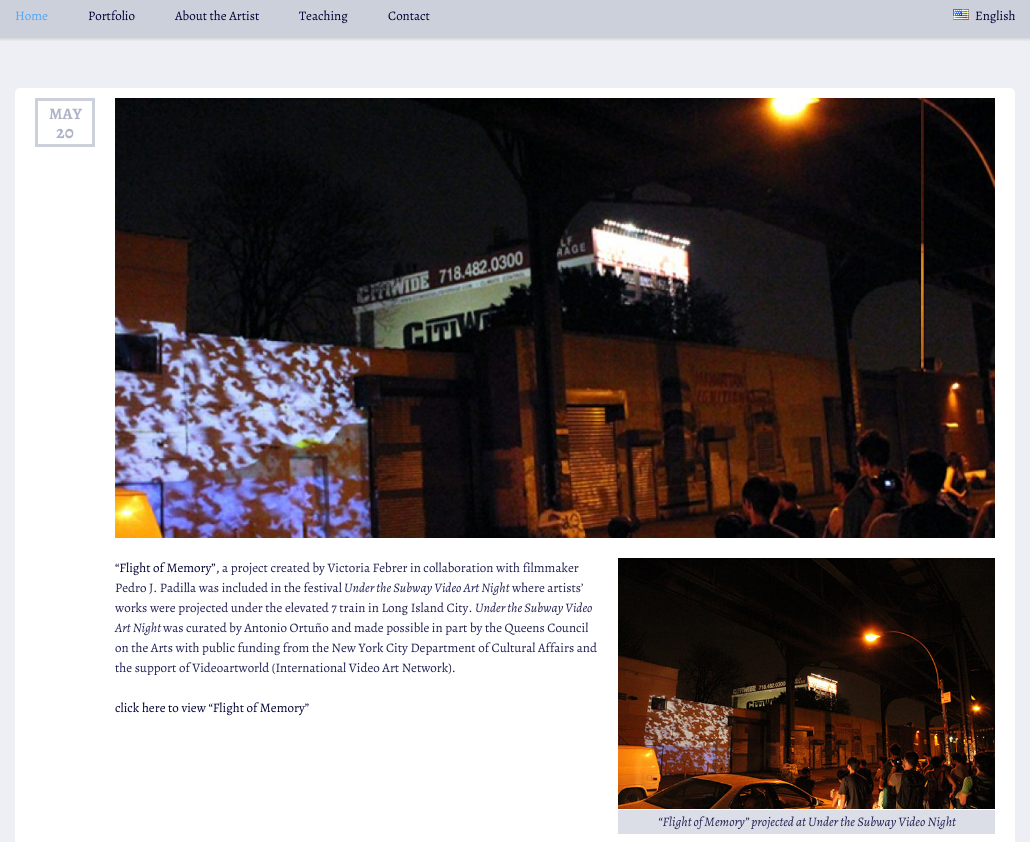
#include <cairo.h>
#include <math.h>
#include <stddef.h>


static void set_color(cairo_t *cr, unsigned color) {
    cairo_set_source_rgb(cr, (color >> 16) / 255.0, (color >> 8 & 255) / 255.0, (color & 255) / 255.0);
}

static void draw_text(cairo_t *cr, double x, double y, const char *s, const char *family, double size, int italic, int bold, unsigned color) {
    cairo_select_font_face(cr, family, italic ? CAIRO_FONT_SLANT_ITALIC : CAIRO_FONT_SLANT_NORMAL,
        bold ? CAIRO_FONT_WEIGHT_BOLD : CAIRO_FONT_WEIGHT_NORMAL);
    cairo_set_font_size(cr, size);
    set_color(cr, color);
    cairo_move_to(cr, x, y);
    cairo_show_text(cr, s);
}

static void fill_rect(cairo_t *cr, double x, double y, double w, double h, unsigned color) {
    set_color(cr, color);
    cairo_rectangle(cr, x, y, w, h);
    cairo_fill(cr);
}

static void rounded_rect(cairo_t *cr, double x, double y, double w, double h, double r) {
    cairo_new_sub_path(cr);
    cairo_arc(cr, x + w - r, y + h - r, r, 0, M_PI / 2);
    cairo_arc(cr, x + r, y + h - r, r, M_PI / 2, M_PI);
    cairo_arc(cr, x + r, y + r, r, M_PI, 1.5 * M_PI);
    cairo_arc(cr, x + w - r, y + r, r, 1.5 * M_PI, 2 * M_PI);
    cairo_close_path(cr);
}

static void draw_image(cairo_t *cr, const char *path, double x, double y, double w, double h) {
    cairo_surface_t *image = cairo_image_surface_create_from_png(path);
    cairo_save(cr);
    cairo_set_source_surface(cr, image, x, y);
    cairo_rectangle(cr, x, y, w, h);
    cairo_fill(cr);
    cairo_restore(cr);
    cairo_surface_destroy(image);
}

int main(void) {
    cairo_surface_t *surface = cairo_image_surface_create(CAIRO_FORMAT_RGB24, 1030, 842);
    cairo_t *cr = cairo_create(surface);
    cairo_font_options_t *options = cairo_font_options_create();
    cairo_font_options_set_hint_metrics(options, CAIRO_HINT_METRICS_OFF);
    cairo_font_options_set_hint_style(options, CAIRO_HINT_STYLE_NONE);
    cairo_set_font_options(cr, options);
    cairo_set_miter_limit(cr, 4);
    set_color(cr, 0xEDEFF4);
    cairo_paint(cr);
    fill_rect(cr, 0, 0, 1030, 38, 0xCCD0DB);
    draw_text(cr, 15, 20, "Home", "Alegreya", 13, 0, 0, 0x50A5F4);
    draw_text(cr, 88, 20, "Portfolio", "Alegreya", 13, 0, 0, 0x000033);
    draw_text(cr, 175, 20, "About the Artist", "Alegreya", 13, 0, 0, 0x000033);
    draw_text(cr, 299, 20, "Teaching", "Alegreya", 13, 0, 0, 0x000033);
    draw_text(cr, 388, 20, "Contact", "Alegreya", 13, 0, 0, 0x000033);
    draw_image(cr, "assets/img1.png", 953, 9, 16, 11);
    draw_text(cr, 975, 20, "English", "Alegreya", 13, 0, 0, 0x000033);
    draw_image(cr, "assets/img2.png", 0, 38, 1030, 3);
    set_color(cr, 0xFFFFFF);
    rounded_rect(cr, 15, 88, 1000, 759, 5);
    cairo_fill(cr);
    cairo_rectangle(cr, 36.5, 99.5, 57, 46);
    set_color(cr, 0xCCD0DB);
    cairo_set_line_width(cr, 3);
    cairo_stroke(cr);
    draw_text(cr, 49, 119, "MAY", "Alegreya", 16, 0, 1, 0xAEB4C6);
    draw_text(cr, 56, 138, "20", "Alegreya", 18, 0, 1, 0xAEB4C6);
    draw_image(cr, "assets/img3.png", 115, 98, 880, 440);
    draw_text(cr, 115, 572, "“Flight of Memory”,", "Alegreya", 13, 0, 0, 0x000033);
    draw_text(cr, 222, 572, "a project created by Victoria Febrer in collaboration with filmmaker", "Alegreya", 13, 0, 0, 0x202052);
    draw_text(cr, 115, 592, "Pedro J. Padilla was included in the festival", "Alegreya", 13, 0, 0, 0x202052);
    draw_text(cr, 344, 592, "Under the Subway Video Art Night", "Alegreya", 13, 1, 0, 0x202052);
    draw_text(cr, 512, 592, "where artists’", "Alegreya", 13, 0, 0, 0x202052);
    draw_text(cr, 115, 612, "works were projected under the elevated 7 train in Long Island City.", "Alegreya", 13, 0, 0, 0x202052);
    draw_text(cr, 475, 612, "Under the Subway Video", "Alegreya", 13, 1, 0, 0x202052);
    draw_text(cr, 115, 632, "Art Night", "Alegreya", 13, 1, 0, 0x202052);
    draw_text(cr, 163, 632, "was curated by Antonio Ortuño and made possible in part by the Queens Council", "Alegreya", 13, 0, 0, 0x202052);
    draw_text(cr, 115, 652, "on the Arts with public funding from the New York City Department of Cultural Affairs and", "Alegreya", 13, 0, 0, 0x202052);
    draw_text(cr, 115, 672, "the support of Videoartworld (International Video Art Network).", "Alegreya", 13, 0, 0, 0x202052);
    draw_text(cr, 115, 712, "click here to view “Flight of Memory”", "Alegreya", 13, 0, 0, 0x000033);
    draw_image(cr, "assets/img4.png", 618, 558, 377, 251);
    fill_rect(cr, 618, 810, 377, 24, 0xDBDEE6);
    draw_text(cr, 658, 826, "“Flight of Memory” projected at Under the Subway Video Night", "Alegreya", 13, 1, 0, 0x202052);
    cairo_surface_write_to_png(surface, "output.png");
    cairo_font_options_destroy(options);
    cairo_destroy(cr);
    cairo_surface_destroy(surface);
    return 0;
}
